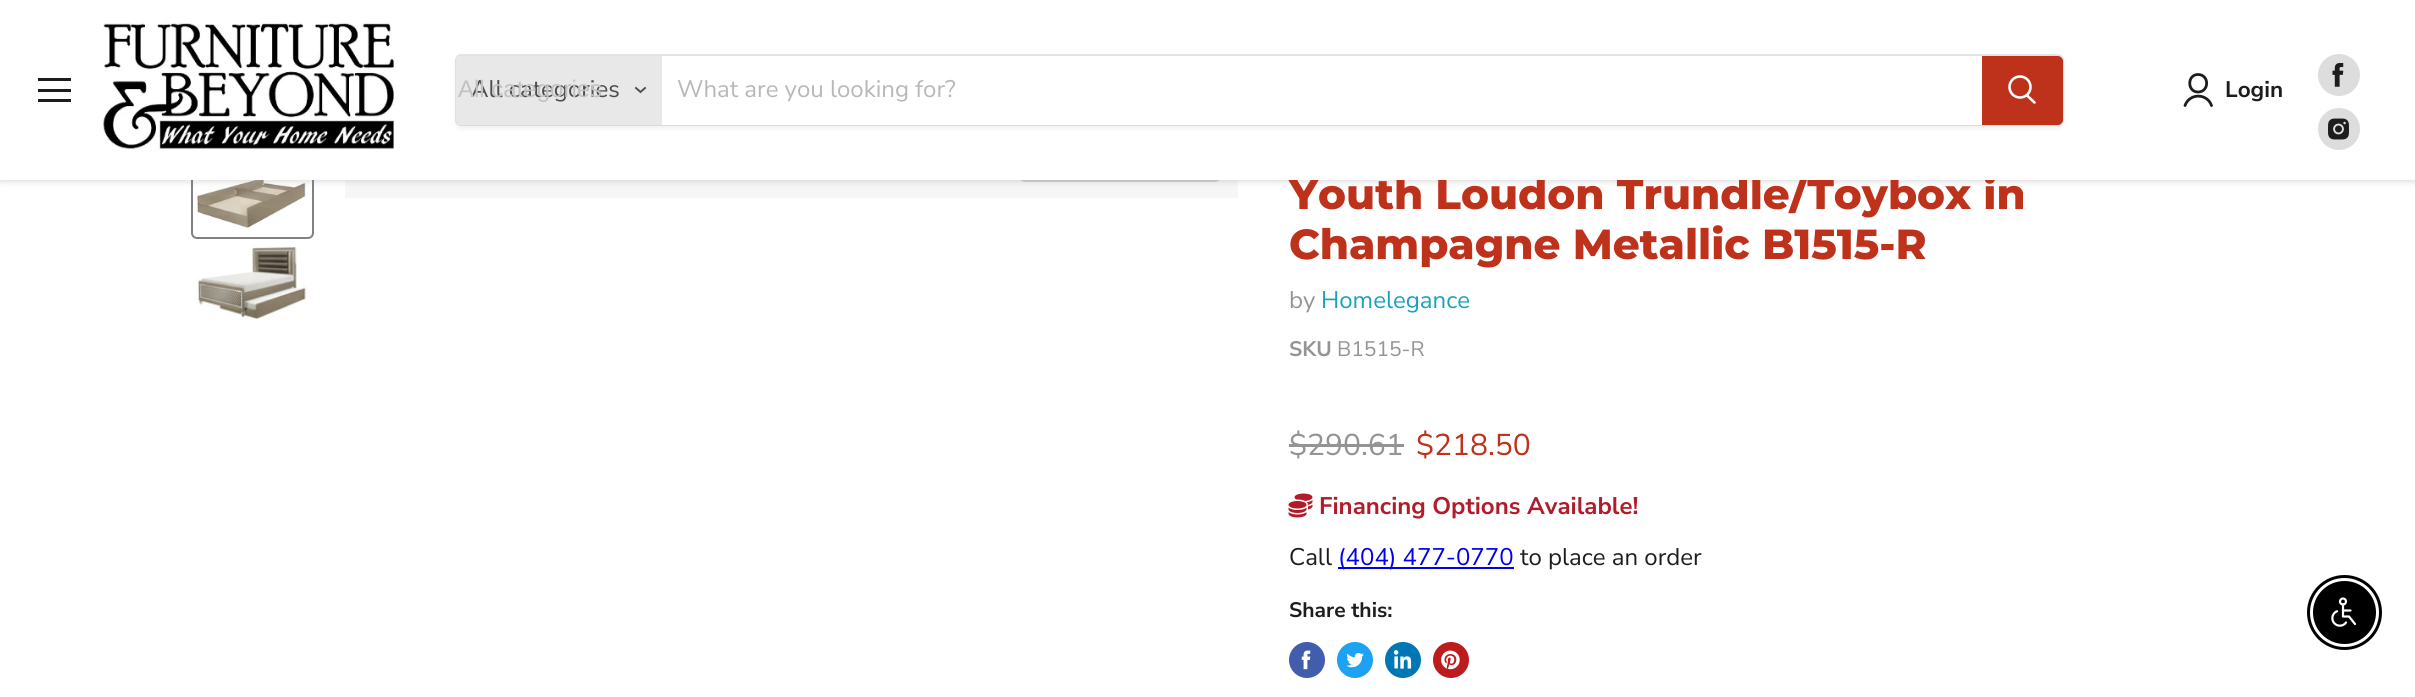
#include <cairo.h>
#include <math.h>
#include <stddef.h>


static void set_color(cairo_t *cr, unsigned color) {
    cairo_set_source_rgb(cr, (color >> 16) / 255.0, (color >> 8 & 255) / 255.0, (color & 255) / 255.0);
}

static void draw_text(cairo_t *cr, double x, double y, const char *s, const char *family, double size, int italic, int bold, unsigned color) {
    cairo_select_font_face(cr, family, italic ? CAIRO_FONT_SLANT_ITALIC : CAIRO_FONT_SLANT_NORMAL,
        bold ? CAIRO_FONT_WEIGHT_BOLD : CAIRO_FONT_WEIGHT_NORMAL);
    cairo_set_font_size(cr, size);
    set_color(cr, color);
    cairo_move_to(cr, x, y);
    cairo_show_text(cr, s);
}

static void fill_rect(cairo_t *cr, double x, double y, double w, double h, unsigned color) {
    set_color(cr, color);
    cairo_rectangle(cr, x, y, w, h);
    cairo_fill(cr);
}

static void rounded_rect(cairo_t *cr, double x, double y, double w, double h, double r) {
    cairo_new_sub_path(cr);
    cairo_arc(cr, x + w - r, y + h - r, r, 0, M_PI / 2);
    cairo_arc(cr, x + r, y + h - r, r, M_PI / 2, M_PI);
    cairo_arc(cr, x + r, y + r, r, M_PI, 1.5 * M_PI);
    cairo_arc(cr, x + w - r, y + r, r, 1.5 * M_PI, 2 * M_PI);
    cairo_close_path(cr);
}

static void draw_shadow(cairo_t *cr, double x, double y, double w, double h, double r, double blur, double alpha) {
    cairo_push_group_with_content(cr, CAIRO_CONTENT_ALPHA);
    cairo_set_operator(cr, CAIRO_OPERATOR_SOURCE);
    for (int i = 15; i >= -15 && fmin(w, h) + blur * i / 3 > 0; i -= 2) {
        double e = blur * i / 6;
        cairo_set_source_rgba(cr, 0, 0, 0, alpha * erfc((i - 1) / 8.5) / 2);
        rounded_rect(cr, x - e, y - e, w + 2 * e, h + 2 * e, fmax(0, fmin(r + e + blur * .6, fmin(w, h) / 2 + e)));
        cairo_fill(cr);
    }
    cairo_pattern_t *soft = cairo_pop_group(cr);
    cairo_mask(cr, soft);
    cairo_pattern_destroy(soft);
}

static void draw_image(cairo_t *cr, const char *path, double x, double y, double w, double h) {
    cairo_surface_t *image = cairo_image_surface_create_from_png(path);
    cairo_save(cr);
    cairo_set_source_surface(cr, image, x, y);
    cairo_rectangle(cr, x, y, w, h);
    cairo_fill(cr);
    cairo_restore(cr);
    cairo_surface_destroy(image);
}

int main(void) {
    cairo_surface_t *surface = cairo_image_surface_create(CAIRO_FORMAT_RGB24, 2415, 697);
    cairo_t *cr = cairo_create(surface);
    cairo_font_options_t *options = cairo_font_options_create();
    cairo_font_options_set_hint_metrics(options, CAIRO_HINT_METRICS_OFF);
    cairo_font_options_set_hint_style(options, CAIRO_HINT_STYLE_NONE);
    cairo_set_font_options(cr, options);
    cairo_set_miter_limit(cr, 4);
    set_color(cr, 0xFFFFFF);
    cairo_paint(cr);
    rounded_rect(cr, 192, 172, 121, 66, 5);
    set_color(cr, 0x818181);
    cairo_stroke(cr);
    draw_image(cr, "assets/img4.png", 195, 180, 112, 49);
    fill_rect(cr, 345, 180, 893, 18, 0xF6F6F6);
    rounded_rect(cr, 1020, 138, 200, 43, 5);
    set_color(cr, 0xD1D1D1);
    cairo_stroke(cr);
    set_color(cr, 0x808080);
    draw_shadow(cr, 0, 2, 2415, 180, 0, 3, 0.25);
    draw_text(cr, 1289, 209, "Youth Loudon Trundle/Toybox in", "Montserrat ExtraBold", 42, 0, 0, 0xBE311B);
    fill_rect(cr, 0, 0, 2415, 180, 0xFFFFFF);
    fill_rect(cr, 38, 78, 33, 3, 0x1D1D1D);
    fill_rect(cr, 38, 89, 33, 3, 0x1D1D1D);
    fill_rect(cr, 38, 99, 33, 3, 0x1D1D1D);
    draw_image(cr, "assets/img1.png", 103, 21, 292, 129);
    set_color(cr, 0x808080);
    draw_shadow(cr, 455, 57, 1609, 72, 6, 2, 0.11);
    rounded_rect(cr, 456, 55, 1607, 70, 5);
    cairo_set_source_rgba(cr, 0.502, 0.502, 0.502, 0.2);
    cairo_stroke(cr);
    set_color(cr, 0xE8E8E8);
    cairo_new_path(cr);
    cairo_move_to(cr, 461, 56);
    cairo_line_to(cr, 662, 56);
    cairo_line_to(cr, 662, 125);
    cairo_line_to(cr, 461, 125);
    cairo_curve_to(cr, 458, 125, 456, 123, 456, 120);
    cairo_line_to(cr, 456, 61);
    cairo_curve_to(cr, 456, 58, 458, 56, 461, 56);
    cairo_close_path(cr);
    cairo_fill(cr);
    draw_text(cr, 471, 97, "All categories", "Nunito Sans", 24, 0, 0, 0x4D4D4D);
    draw_text(cr, 458, 97, "All categories", "Liberation Sans", 24, 0, 0, 0xC2C2C2);
    cairo_new_path(cr);
    cairo_move_to(cr, 640.5, 92);
    cairo_line_to(cr, 645, 88);
    cairo_move_to(cr, 640.5, 92);
    cairo_line_to(cr, 636, 88);
    set_color(cr, 0x4D4D4D);
    cairo_set_line_width(cr, 1.9);
    cairo_set_line_cap(cr, CAIRO_LINE_CAP_SQUARE);
    cairo_stroke(cr);
    fill_rect(cr, 662, 56, 1320, 69, 0xFFFFFF);
    draw_text(cr, 677, 97, "What are you looking for?", "Nunito Sans", 24, 0, 0, 0xB8B8B8);
    set_color(cr, 0xBE311B);
    cairo_new_path(cr);
    cairo_move_to(cr, 1983, 57);
    cairo_line_to(cr, 2058, 57);
    cairo_curve_to(cr, 2060, 57, 2062, 59, 2062, 61);
    cairo_line_to(cr, 2062, 120);
    cairo_curve_to(cr, 2062, 122, 2060, 124, 2058, 124);
    cairo_line_to(cr, 1983, 124);
    cairo_close_path(cr);
    cairo_fill_preserve(cr);
    cairo_set_line_width(cr, 2);
    cairo_set_line_cap(cr, CAIRO_LINE_CAP_BUTT);
    cairo_stroke(cr);
    cairo_new_path(cr);
    cairo_move_to(cr, 2034.5, 102.5);
    cairo_line_to(cr, 2027, 95.5);
    set_color(cr, 0xFFFFFF);
    cairo_set_line_width(cr, 2.6);
    cairo_set_line_cap(cr, CAIRO_LINE_CAP_ROUND);
    cairo_stroke(cr);
    cairo_arc(cr, 2020, 87, 10.5, 0, 2 * M_PI);
    cairo_set_line_cap(cr, CAIRO_LINE_CAP_BUTT);
    cairo_stroke(cr);
    cairo_new_path(cr);
    cairo_move_to(cr, 2198, 92);
    cairo_curve_to(cr, 2209.5, 92, 2209.5, 74.5, 2198, 74.5);
    cairo_curve_to(cr, 2187, 74.5, 2187, 92, 2198, 92);
    cairo_close_path(cr);
    cairo_move_to(cr, 2211.5, 105.5);
    cairo_curve_to(cr, 2207, 93, 2189.5, 93, 2185, 105.5);
    set_color(cr, 0x1D1D1D);
    cairo_set_line_width(cr, 2.8);
    cairo_set_line_cap(cr, CAIRO_LINE_CAP_ROUND);
    cairo_set_line_join(cr, CAIRO_LINE_JOIN_ROUND);
    cairo_stroke(cr);
    draw_text(cr, 2225, 97, "Login", "Nunito Sans", 22.5, 0, 1, 0x1D1D1D);
    set_color(cr, 0xDDDDDD);
    cairo_new_path(cr);
    cairo_arc(cr, 2339, 75, 21, 0, 2 * M_PI);
    cairo_fill(cr);
    draw_image(cr, "assets/img2.png", 2332, 63, 12, 24);
    cairo_arc(cr, 2339, 129, 21, 0, 2 * M_PI);
    cairo_fill(cr);
    draw_image(cr, "assets/img3.png", 2328, 118, 21, 22);
    draw_image(cr, "assets/img5.png", 195, 245, 112, 75);
    draw_text(cr, 1289, 259, "Champagne Metallic B1515-R", "Montserrat ExtraBold", 42, 0, 0, 0xBE311B);
    draw_text(cr, 1289, 308, "by", "Nunito Sans", 24, 0, 0, 0x949494);
    draw_text(cr, 1321, 308, "Homelegance", "Nunito Sans", 24, 0, 0, 0x1AA2BC);
    draw_text(cr, 1289, 356, "SKU", "Nunito Sans", 21, 0, 1, 0x949494);
    draw_text(cr, 1337, 356, "B1515-R", "Nunito Sans", 21, 0, 0, 0x949494);
    draw_text(cr, 1289, 455, "$290.61", "Nunito Sans", 30, 0, 0, 0x949494);
    fill_rect(cr, 1289, 444, 115, 3, 0x949494);
    draw_text(cr, 1416, 455, "$218.50", "Nunito Sans", 30, 0, 0, 0xBE311B);
    draw_image(cr, "assets/img6.png", 1288, 493, 25, 25);
    draw_text(cr, 1319, 514, "Financing Options Available!", "Nunito Sans", 24, 0, 1, 0xB11B2A);
    draw_text(cr, 1289, 565, "Call", "Nunito Sans", 24, 0, 0, 0x1D1D1D);
    fill_rect(cr, 1338, 567, 176, 2, 0x0000EE);
    draw_text(cr, 1338, 565, "(404) 477-0770", "Nunito Sans", 24, 0, 0, 0x0000EE);
    draw_text(cr, 1520, 565, "to place an order", "Nunito Sans", 24, 0, 0, 0x1D1D1D);
    draw_text(cr, 1289, 617, "Share this:", "Nunito Sans", 21, 0, 1, 0x1D1D1D);
    set_color(cr, 0x425DAB);
    cairo_new_path(cr);
    cairo_arc(cr, 1307, 660, 18, 0, 2 * M_PI);
    cairo_fill(cr);
    draw_image(cr, "assets/img7.png", 1301, 650, 10, 20);
    set_color(cr, 0x1DA1F2);
    cairo_arc(cr, 1355, 660, 18, 0, 2 * M_PI);
    cairo_fill(cr);
    draw_image(cr, "assets/img8.png", 1346, 652, 18, 16);
    set_color(cr, 0x0077B5);
    cairo_arc(cr, 1403, 660, 18, 0, 2 * M_PI);
    cairo_fill(cr);
    draw_image(cr, "assets/img9.png", 1393, 650, 19, 19);
    set_color(cr, 0xBD1C1C);
    cairo_arc(cr, 1451, 660, 18, 0, 2 * M_PI);
    cairo_fill(cr);
    draw_image(cr, "assets/img10.png", 1441, 650, 19, 20);
    cairo_arc(cr, 2344.5, 612.5, 36, 0, 2 * M_PI);
    set_color(cr, 0x000000);
    cairo_set_line_width(cr, 3);
    cairo_set_line_cap(cr, CAIRO_LINE_CAP_BUTT);
    cairo_set_line_join(cr, CAIRO_LINE_JOIN_MITER);
    cairo_stroke(cr);
    cairo_arc(cr, 2344.5, 612.5, 30.5, 0, 2 * M_PI);
    cairo_fill_preserve(cr);
    cairo_set_line_width(cr, 2);
    cairo_stroke(cr);
    draw_image(cr, "assets/img11.png", 2331, 597, 26, 30);
    cairo_surface_write_to_png(surface, "output.png");
    cairo_font_options_destroy(options);
    cairo_destroy(cr);
    cairo_surface_destroy(surface);
    return 0;
}
